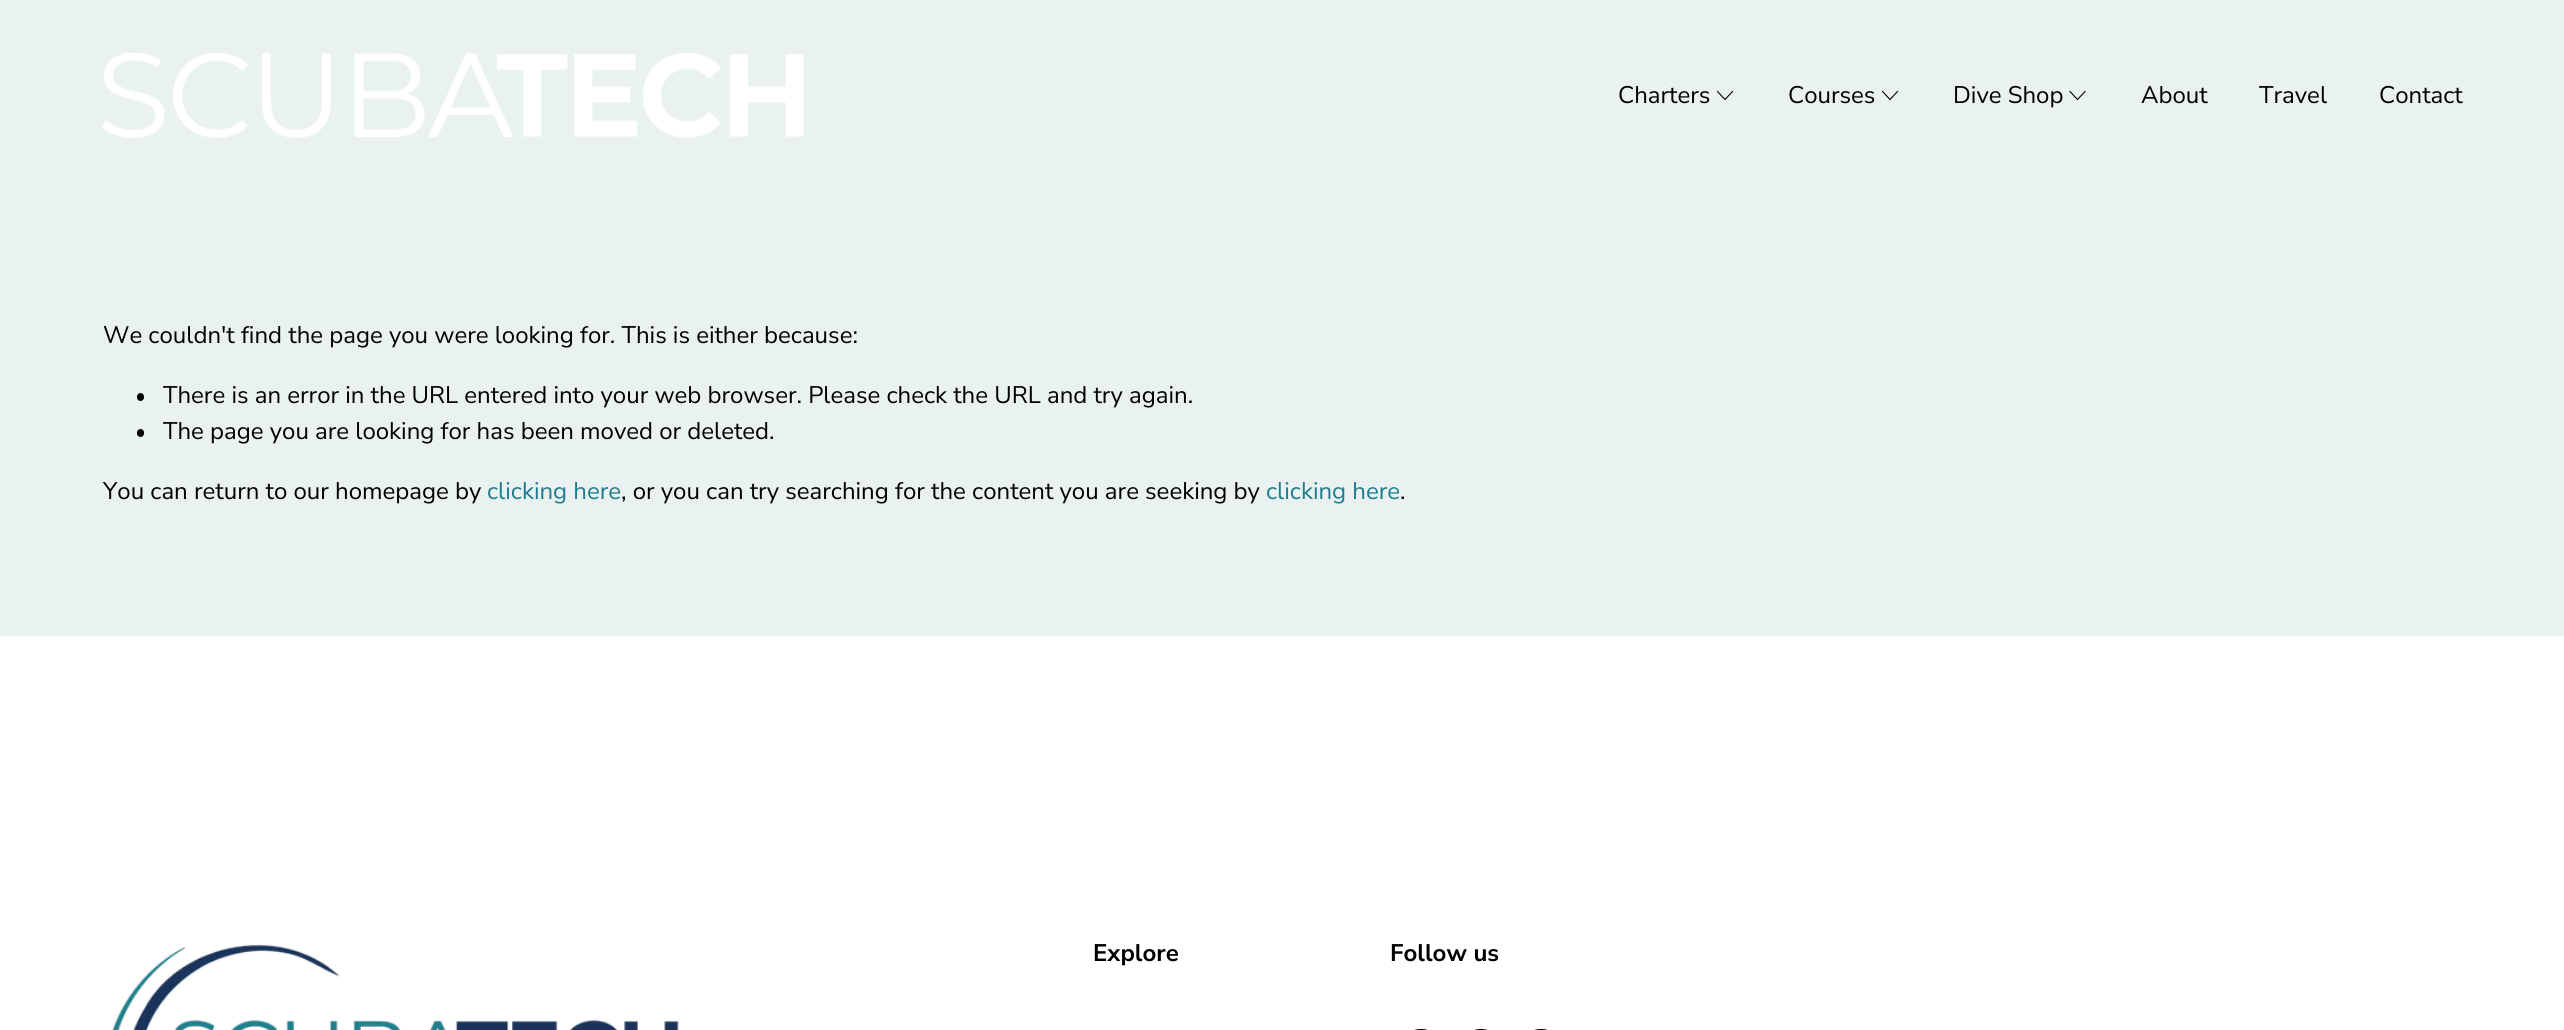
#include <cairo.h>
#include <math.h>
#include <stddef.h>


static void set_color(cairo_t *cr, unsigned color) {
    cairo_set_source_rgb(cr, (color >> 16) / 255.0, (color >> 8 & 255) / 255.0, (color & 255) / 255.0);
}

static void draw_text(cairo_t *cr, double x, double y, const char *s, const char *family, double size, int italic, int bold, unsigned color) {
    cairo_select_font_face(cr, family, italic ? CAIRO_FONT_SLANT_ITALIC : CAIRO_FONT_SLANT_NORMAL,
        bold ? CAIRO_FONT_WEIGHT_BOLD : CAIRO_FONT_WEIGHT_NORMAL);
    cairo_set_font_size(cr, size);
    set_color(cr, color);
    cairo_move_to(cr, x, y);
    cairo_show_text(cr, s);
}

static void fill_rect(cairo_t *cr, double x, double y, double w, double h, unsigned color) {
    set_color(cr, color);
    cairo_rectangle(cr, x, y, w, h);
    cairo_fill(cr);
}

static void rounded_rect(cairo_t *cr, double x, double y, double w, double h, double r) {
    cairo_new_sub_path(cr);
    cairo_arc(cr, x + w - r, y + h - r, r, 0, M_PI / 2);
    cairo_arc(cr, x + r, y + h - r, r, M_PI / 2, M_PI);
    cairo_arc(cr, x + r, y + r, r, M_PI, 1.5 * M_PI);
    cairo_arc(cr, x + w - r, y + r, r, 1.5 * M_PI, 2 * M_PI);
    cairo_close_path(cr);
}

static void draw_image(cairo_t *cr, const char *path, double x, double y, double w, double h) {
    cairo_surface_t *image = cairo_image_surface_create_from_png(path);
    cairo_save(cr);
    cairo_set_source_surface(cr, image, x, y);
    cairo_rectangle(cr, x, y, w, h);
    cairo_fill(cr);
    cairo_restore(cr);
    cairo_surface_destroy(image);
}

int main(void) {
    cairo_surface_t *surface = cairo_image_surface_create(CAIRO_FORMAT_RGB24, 2564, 1030);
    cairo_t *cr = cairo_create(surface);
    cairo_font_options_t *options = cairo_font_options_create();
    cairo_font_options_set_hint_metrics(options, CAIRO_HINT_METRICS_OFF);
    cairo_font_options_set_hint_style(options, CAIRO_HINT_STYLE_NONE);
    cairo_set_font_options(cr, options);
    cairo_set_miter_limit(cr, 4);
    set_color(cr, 0xEAF1F1);
    cairo_paint(cr);
    draw_image(cr, "assets/img1.png", 102, 52, 702, 86);
    draw_text(cr, 1618, 103, "Charters", "Nunito Sans", 24, 0, 0, 0x000000);
    cairo_new_path(cr);
    cairo_move_to(cr, 1732.5, 91.5);
    cairo_line_to(cr, 1725, 99.5);
    cairo_line_to(cr, 1717.5, 91.5);
    cairo_set_line_width(cr, 1.1);
    cairo_set_line_cap(cr, CAIRO_LINE_CAP_SQUARE);
    cairo_stroke(cr);
    draw_text(cr, 1788, 103, "Courses", "Nunito Sans", 24, 0, 0, 0x000000);
    cairo_new_path(cr);
    cairo_move_to(cr, 1897.5, 91.5);
    cairo_line_to(cr, 1890, 99.5);
    cairo_line_to(cr, 1882.5, 91.5);
    cairo_stroke(cr);
    draw_text(cr, 1953, 103, "Dive Shop", "Nunito Sans", 24, 0, 0, 0x000000);
    cairo_new_path(cr);
    cairo_move_to(cr, 2085, 91.5);
    cairo_line_to(cr, 2077.5, 99.5);
    cairo_line_to(cr, 2070, 91.5);
    cairo_stroke(cr);
    draw_text(cr, 2141, 103, "About", "Nunito Sans", 24, 0, 0, 0x000000);
    draw_text(cr, 2259, 103, "Travel", "Nunito Sans", 24, 0, 0, 0x000000);
    draw_text(cr, 2379, 103, "Contact", "Nunito Sans", 24, 0, 0, 0x000000);
    draw_text(cr, 103, 343, "We couldn't find the page you were looking for. This is either because:", "Nunito Sans", 24, 0, 0, 0x000000);
    rounded_rect(cr, 137, 393, 7, 8, 3.5);
    cairo_fill(cr);
    draw_text(cr, 163, 403, "There is an error in the URL entered into your web browser. Please check the URL and try again.", "Nunito Sans", 24, 0, 0, 0x000000);
    rounded_rect(cr, 137, 429, 7, 8, 3.5);
    cairo_fill(cr);
    draw_text(cr, 163, 439, "The page you are looking for has been moved or deleted.", "Nunito Sans", 24, 0, 0, 0x000000);
    draw_text(cr, 103, 499, "You can return to our homepage by", "Nunito Sans", 24, 0, 0, 0x000000);
    draw_text(cr, 487, 499, "clicking here", "Nunito Sans", 24, 0, 0, 0x1C7D8E);
    draw_text(cr, 621, 499, ", or you can try searching for the content you are seeking by", "Nunito Sans", 24, 0, 0, 0x000000);
    draw_text(cr, 1266, 499, "clicking here", "Nunito Sans", 24, 0, 0, 0x1C7D8E);
    draw_text(cr, 1400, 499, ".", "Nunito Sans", 24, 0, 0, 0x000000);
    fill_rect(cr, 0, 636, 2564, 394, 0xFFFFFF);
    draw_image(cr, "assets/img2.png", 112, 944, 567, 86);
    draw_text(cr, 1093, 961, "Explore", "Nunito Sans", 24, 0, 1, 0x000000);
    draw_text(cr, 1390, 961, "Follow us", "Nunito Sans", 24, 0, 1, 0x000000);
    rounded_rect(cr, 1397, 1029, 48, 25, 24);
    cairo_fill(cr);
    rounded_rect(cr, 1457, 1029, 48, 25, 24);
    cairo_fill(cr);
    rounded_rect(cr, 1517, 1029, 48, 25, 24);
    cairo_fill(cr);
    cairo_surface_write_to_png(surface, "output.png");
    cairo_font_options_destroy(options);
    cairo_destroy(cr);
    cairo_surface_destroy(surface);
    return 0;
}
